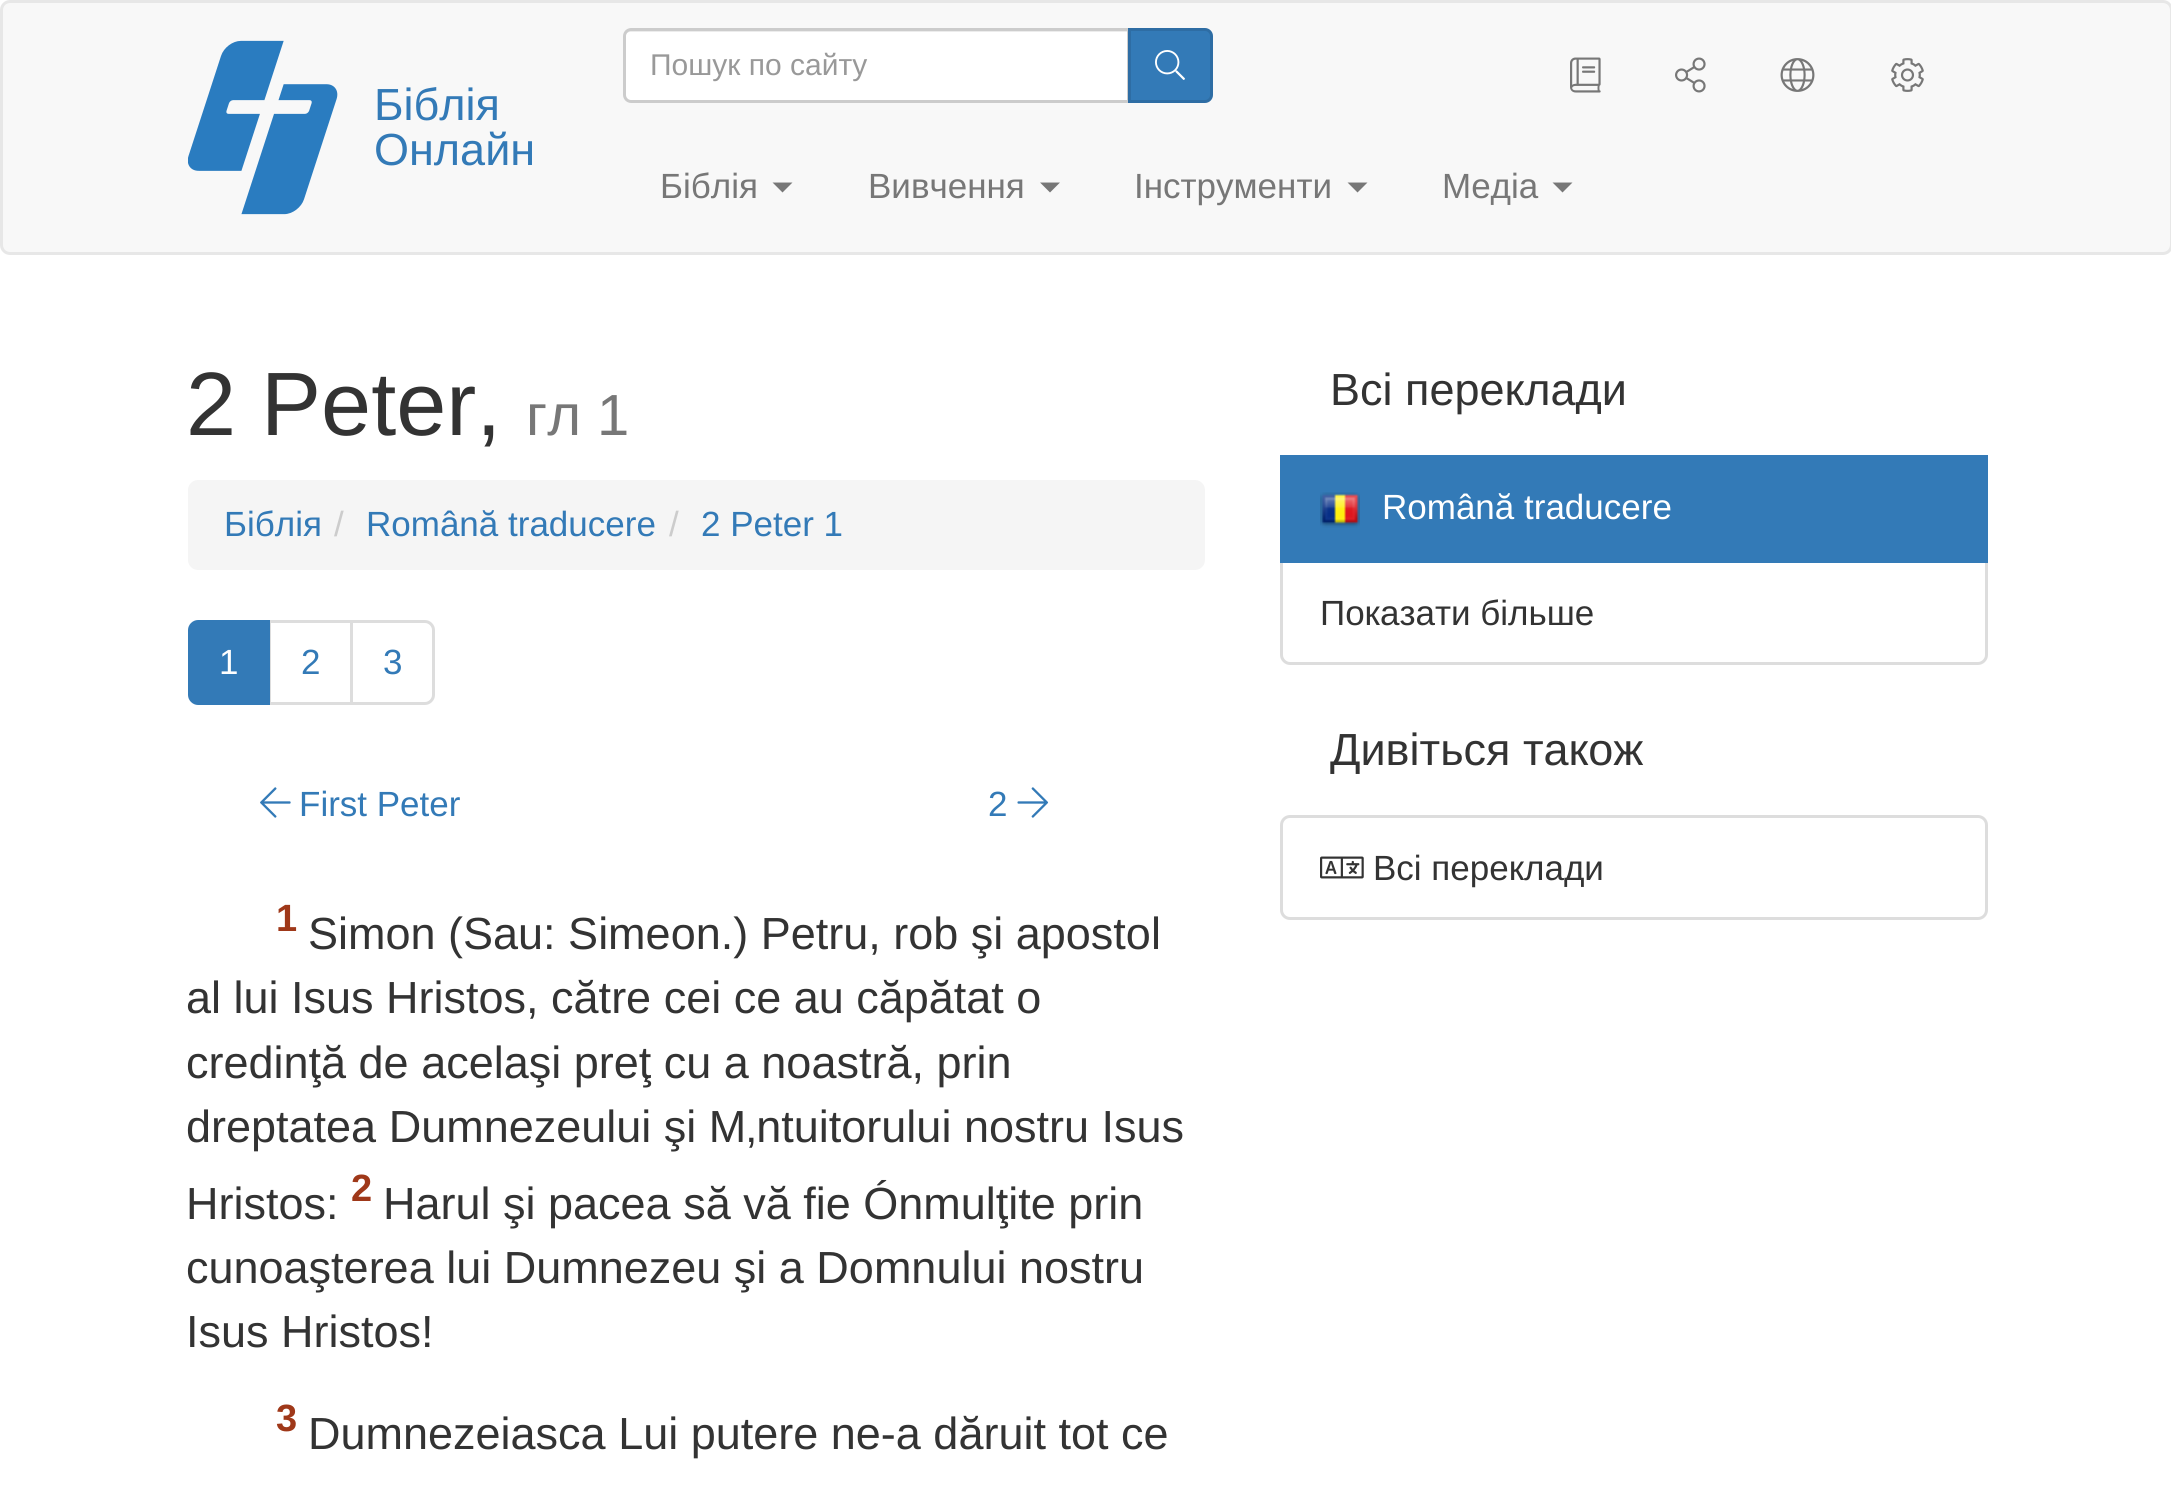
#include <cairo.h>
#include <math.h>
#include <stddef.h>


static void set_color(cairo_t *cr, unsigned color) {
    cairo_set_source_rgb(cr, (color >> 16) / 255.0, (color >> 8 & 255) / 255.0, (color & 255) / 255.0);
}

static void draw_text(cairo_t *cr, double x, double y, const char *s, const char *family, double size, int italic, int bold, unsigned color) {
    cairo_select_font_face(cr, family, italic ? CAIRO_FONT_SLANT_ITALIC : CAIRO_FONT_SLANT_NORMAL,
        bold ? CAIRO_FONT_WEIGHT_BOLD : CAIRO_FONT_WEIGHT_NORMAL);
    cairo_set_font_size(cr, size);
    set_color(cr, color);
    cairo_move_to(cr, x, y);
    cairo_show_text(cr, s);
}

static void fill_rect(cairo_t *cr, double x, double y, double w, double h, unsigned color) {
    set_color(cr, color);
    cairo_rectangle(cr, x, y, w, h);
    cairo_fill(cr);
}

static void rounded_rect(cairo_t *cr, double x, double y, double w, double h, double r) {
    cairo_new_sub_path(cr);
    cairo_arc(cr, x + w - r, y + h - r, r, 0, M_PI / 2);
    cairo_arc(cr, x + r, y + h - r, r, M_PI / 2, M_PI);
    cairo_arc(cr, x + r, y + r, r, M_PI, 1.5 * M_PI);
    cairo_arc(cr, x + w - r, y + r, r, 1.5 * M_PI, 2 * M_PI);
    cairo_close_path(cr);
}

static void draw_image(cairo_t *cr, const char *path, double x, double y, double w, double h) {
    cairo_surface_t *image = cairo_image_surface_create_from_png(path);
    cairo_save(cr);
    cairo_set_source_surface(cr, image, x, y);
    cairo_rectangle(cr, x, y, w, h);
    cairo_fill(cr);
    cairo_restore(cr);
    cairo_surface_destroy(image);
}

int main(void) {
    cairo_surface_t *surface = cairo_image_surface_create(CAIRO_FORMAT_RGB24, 2171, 1504);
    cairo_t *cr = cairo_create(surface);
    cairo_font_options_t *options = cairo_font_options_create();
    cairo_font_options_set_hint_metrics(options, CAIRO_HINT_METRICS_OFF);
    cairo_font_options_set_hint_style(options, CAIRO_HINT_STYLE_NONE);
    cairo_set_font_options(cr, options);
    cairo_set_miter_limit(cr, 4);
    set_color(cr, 0xFFFFFF);
    cairo_paint(cr);
    set_color(cr, 0xF8F8F8);
    rounded_rect(cr, 1.5, 1.5, 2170, 252, 8.5);
    cairo_fill_preserve(cr);
    set_color(cr, 0xE7E7E7);
    cairo_set_line_width(cr, 3);
    cairo_stroke(cr);
    draw_image(cr, "assets/img1.png", 188, 40, 150, 175);
    draw_text(cr, 374, 120, "Біблія", "Liberation Sans", 45, 0, 0, 0x337AB7);
    draw_text(cr, 374, 165, "Онлайн", "Liberation Sans", 45, 0, 0, 0x337AB7);
    set_color(cr, 0xFFFFFF);
    cairo_new_path(cr);
    cairo_move_to(cr, 631, 28);
    cairo_line_to(cr, 1130, 28);
    cairo_line_to(cr, 1130, 103);
    cairo_line_to(cr, 631, 103);
    cairo_curve_to(cr, 626.5, 103, 623, 99.5, 623, 95);
    cairo_line_to(cr, 623, 36);
    cairo_curve_to(cr, 623, 31.5, 626.5, 28, 631, 28);
    cairo_close_path(cr);
    cairo_fill(cr);
    set_color(cr, 0xECECEC);
    cairo_new_path(cr);
    cairo_move_to(cr, 630, 32);
    cairo_line_to(cr, 1128, 32);
    cairo_line_to(cr, 1128, 30);
    cairo_line_to(cr, 630, 30);
    cairo_curve_to(cr, 627, 30, 625, 32, 625, 35);
    cairo_line_to(cr, 625, 38);
    cairo_curve_to(cr, 625, 35, 627, 32, 630, 32);
    cairo_close_path(cr);
    cairo_fill(cr);
    cairo_new_path(cr);
    cairo_move_to(cr, 631, 29.5);
    cairo_line_to(cr, 1128.5, 29.5);
    cairo_line_to(cr, 1128.5, 101.5);
    cairo_line_to(cr, 631, 101.5);
    cairo_curve_to(cr, 627.5, 101.5, 624.5, 98.5, 624.5, 95);
    cairo_line_to(cr, 624.5, 36);
    cairo_curve_to(cr, 624.5, 32.5, 627.5, 29.5, 631, 29.5);
    cairo_close_path(cr);
    set_color(cr, 0xCCCCCC);
    cairo_stroke(cr);
    draw_text(cr, 650, 75, "Пошук по сайту", "Liberation Sans", 30, 0, 0, 0x999999);
    set_color(cr, 0x337AB7);
    cairo_new_path(cr);
    cairo_move_to(cr, 1129.5, 29.5);
    cairo_line_to(cr, 1205, 29.5);
    cairo_curve_to(cr, 1208.5, 29.5, 1211.5, 32.5, 1211.5, 36);
    cairo_line_to(cr, 1211.5, 95);
    cairo_curve_to(cr, 1211.5, 98.5, 1208.5, 101.5, 1205, 101.5);
    cairo_line_to(cr, 1129.5, 101.5);
    cairo_close_path(cr);
    cairo_fill_preserve(cr);
    set_color(cr, 0x2E6DA4);
    cairo_stroke(cr);
    draw_image(cr, "assets/img2.png", 1155, 50, 30, 30);
    draw_image(cr, "assets/img3.png", 1570, 57, 31, 36);
    draw_image(cr, "assets/img4.png", 1675, 57, 31, 36);
    draw_image(cr, "assets/img5.png", 1780, 58, 35, 34);
    draw_image(cr, "assets/img6.png", 1891, 58, 33, 34);
    draw_text(cr, 660, 198, "Біблія", "Liberation Sans", 35, 0, 0, 0x777777);
    cairo_new_path(cr);
    cairo_move_to(cr, 772.5, 182.5);
    cairo_line_to(cr, 792.5, 182.5);
    cairo_line_to(cr, 782.5, 192.5);
    cairo_close_path(cr);
    cairo_fill(cr);
    draw_text(cr, 868, 198, "Вивчення", "Liberation Sans", 35, 0, 0, 0x777777);
    cairo_new_path(cr);
    cairo_move_to(cr, 1040, 182.5);
    cairo_line_to(cr, 1060, 182.5);
    cairo_line_to(cr, 1050, 192.5);
    cairo_close_path(cr);
    cairo_fill(cr);
    draw_text(cr, 1134, 198, "Інструменти", "Liberation Sans", 35, 0, 0, 0x777777);
    cairo_new_path(cr);
    cairo_move_to(cr, 1347.5, 182.5);
    cairo_line_to(cr, 1367.5, 182.5);
    cairo_line_to(cr, 1357.5, 192.5);
    cairo_close_path(cr);
    cairo_fill(cr);
    draw_text(cr, 1442, 198, "Медіа", "Liberation Sans", 35, 0, 0, 0x777777);
    cairo_new_path(cr);
    cairo_move_to(cr, 1552.5, 182.5);
    cairo_line_to(cr, 1572.5, 182.5);
    cairo_line_to(cr, 1562.5, 192.5);
    cairo_close_path(cr);
    cairo_fill(cr);
    draw_text(cr, 186, 435, "2 Peter,", "Liberation Sans", 90, 0, 0, 0x333333);
    draw_text(cr, 526, 435, "гл 1", "Liberation Sans", 58, 0, 0, 0x777777);
    set_color(cr, 0xF5F5F5);
    rounded_rect(cr, 188, 480, 1017, 90, 10);
    cairo_fill(cr);
    draw_text(cr, 224, 536, "Біблія", "Liberation Sans", 35, 0, 0, 0x337AB7);
    draw_text(cr, 334, 536, "/", "Liberation Sans", 35, 0, 0, 0xCCCCCC);
    draw_text(cr, 366, 536, "Română traducere", "Liberation Sans", 35, 0, 0, 0x337AB7);
    draw_text(cr, 669, 536, "/", "Liberation Sans", 35, 0, 0, 0xCCCCCC);
    draw_text(cr, 701, 536, "2 Peter 1", "Liberation Sans", 35, 0, 0, 0x337AB7);
    cairo_rectangle(cr, 269.5, 621.5, 82, 82);
    set_color(cr, 0xDDDDDD);
    cairo_stroke(cr);
    set_color(cr, 0x337AB7);
    cairo_new_path(cr);
    cairo_move_to(cr, 198, 621.5);
    cairo_line_to(cr, 268.5, 621.5);
    cairo_line_to(cr, 268.5, 703.5);
    cairo_line_to(cr, 198, 703.5);
    cairo_curve_to(cr, 193.5, 703.5, 189.5, 699.5, 189.5, 695);
    cairo_line_to(cr, 189.5, 630);
    cairo_curve_to(cr, 189.5, 625.5, 193.5, 621.5, 198, 621.5);
    cairo_close_path(cr);
    cairo_fill_preserve(cr);
    cairo_stroke(cr);
    draw_text(cr, 219, 674, "1", "Liberation Sans", 35, 0, 0, 0xFFFFFF);
    draw_text(cr, 301, 674, "2", "Liberation Sans", 35, 0, 0, 0x337AB7);
    set_color(cr, 0xFFFFFF);
    cairo_new_path(cr);
    cairo_move_to(cr, 351.5, 621.5);
    cairo_line_to(cr, 425, 621.5);
    cairo_curve_to(cr, 429.5, 621.5, 433.5, 625.5, 433.5, 630);
    cairo_line_to(cr, 433.5, 695);
    cairo_curve_to(cr, 433.5, 699.5, 429.5, 703.5, 425, 703.5);
    cairo_line_to(cr, 351.5, 703.5);
    cairo_close_path(cr);
    cairo_fill_preserve(cr);
    set_color(cr, 0xDDDDDD);
    cairo_stroke(cr);
    draw_text(cr, 383, 674, "3", "Liberation Sans", 35, 0, 0, 0x337AB7);
    draw_image(cr, "assets/img7.png", 260, 787, 31, 31);
    draw_text(cr, 299, 816, "First Peter", "Liberation Sans", 35, 0, 0, 0x337AB7);
    draw_text(cr, 988, 816, "2", "Liberation Sans", 35, 0, 0, 0x337AB7);
    draw_image(cr, "assets/img8.png", 1017, 787, 32, 31);
    draw_text(cr, 276, 931, "1", "Liberation Sans", 38, 0, 1, 0x9F3819);
    draw_text(cr, 308, 949, "Simon (Sau: Simeon.) Petru, rob şi apostol", "Liberation Sans", 45, 0, 0, 0x333333);
    draw_text(cr, 186, 1013, "al lui Isus Hristos, către cei ce au căpătat o", "Liberation Sans", 45, 0, 0, 0x333333);
    draw_text(cr, 186, 1078, "credinţă de acelaşi preţ cu a noastră, prin", "Liberation Sans", 45, 0, 0, 0x333333);
    draw_text(cr, 186, 1142, "dreptatea Dumnezeului şi M‚ntuitorului nostru Isus", "Liberation Sans", 45, 0, 0, 0x333333);
    draw_text(cr, 186, 1219, "Hristos:", "Liberation Sans", 45, 0, 0, 0x333333);
    draw_text(cr, 351, 1201, "2", "Liberation Sans", 38, 0, 1, 0x9F3819);
    draw_text(cr, 383, 1219, "Harul şi pacea să vă fie Ónmulţite prin", "Liberation Sans", 45, 0, 0, 0x333333);
    draw_text(cr, 186, 1283, "cunoaşterea lui Dumnezeu şi a Domnului nostru", "Liberation Sans", 45, 0, 0, 0x333333);
    draw_text(cr, 186, 1347, "Isus Hristos!", "Liberation Sans", 45, 0, 0, 0x333333);
    draw_text(cr, 276, 1431, "3", "Liberation Sans", 38, 0, 1, 0x9F3819);
    draw_text(cr, 308, 1449, "Dumnezeiasca Lui putere ne-a dăruit tot ce", "Liberation Sans", 45, 0, 0, 0x333333);
    draw_text(cr, 1330, 405, "Всі переклади", "Liberation Sans", 45, 0, 0, 0x333333);
    cairo_new_path(cr);
    cairo_move_to(cr, 1281.5, 561.5);
    cairo_line_to(cr, 1986.5, 561.5);
    cairo_line_to(cr, 1986.5, 655);
    cairo_curve_to(cr, 1986.5, 659.5, 1982.5, 663.5, 1978, 663.5);
    cairo_line_to(cr, 1290, 663.5);
    cairo_curve_to(cr, 1285.5, 663.5, 1281.5, 659.5, 1281.5, 655);
    cairo_close_path(cr);
    set_color(cr, 0xDDDDDD);
    cairo_stroke(cr);
    fill_rect(cr, 1280, 455, 708, 108, 0x337AB7);
    draw_image(cr, "assets/img9.png", 1320, 492, 40, 36);
    draw_text(cr, 1382, 519, "Română traducere", "Liberation Sans", 35, 0, 0, 0xFFFFFF);
    draw_text(cr, 1320, 625, "Показати більше", "Liberation Sans", 35, 0, 0, 0x333333);
    draw_text(cr, 1330, 765, "Дивіться також", "Liberation Sans", 45, 0, 0, 0x333333);
    rounded_rect(cr, 1281.5, 816.5, 705, 102, 8.5);
    set_color(cr, 0xDDDDDD);
    cairo_stroke(cr);
    draw_image(cr, "assets/img10.png", 1320, 856, 44, 23);
    draw_text(cr, 1373, 880, "Всі переклади", "Liberation Sans", 35, 0, 0, 0x333333);
    cairo_surface_write_to_png(surface, "output.png");
    cairo_font_options_destroy(options);
    cairo_destroy(cr);
    cairo_surface_destroy(surface);
    return 0;
}
